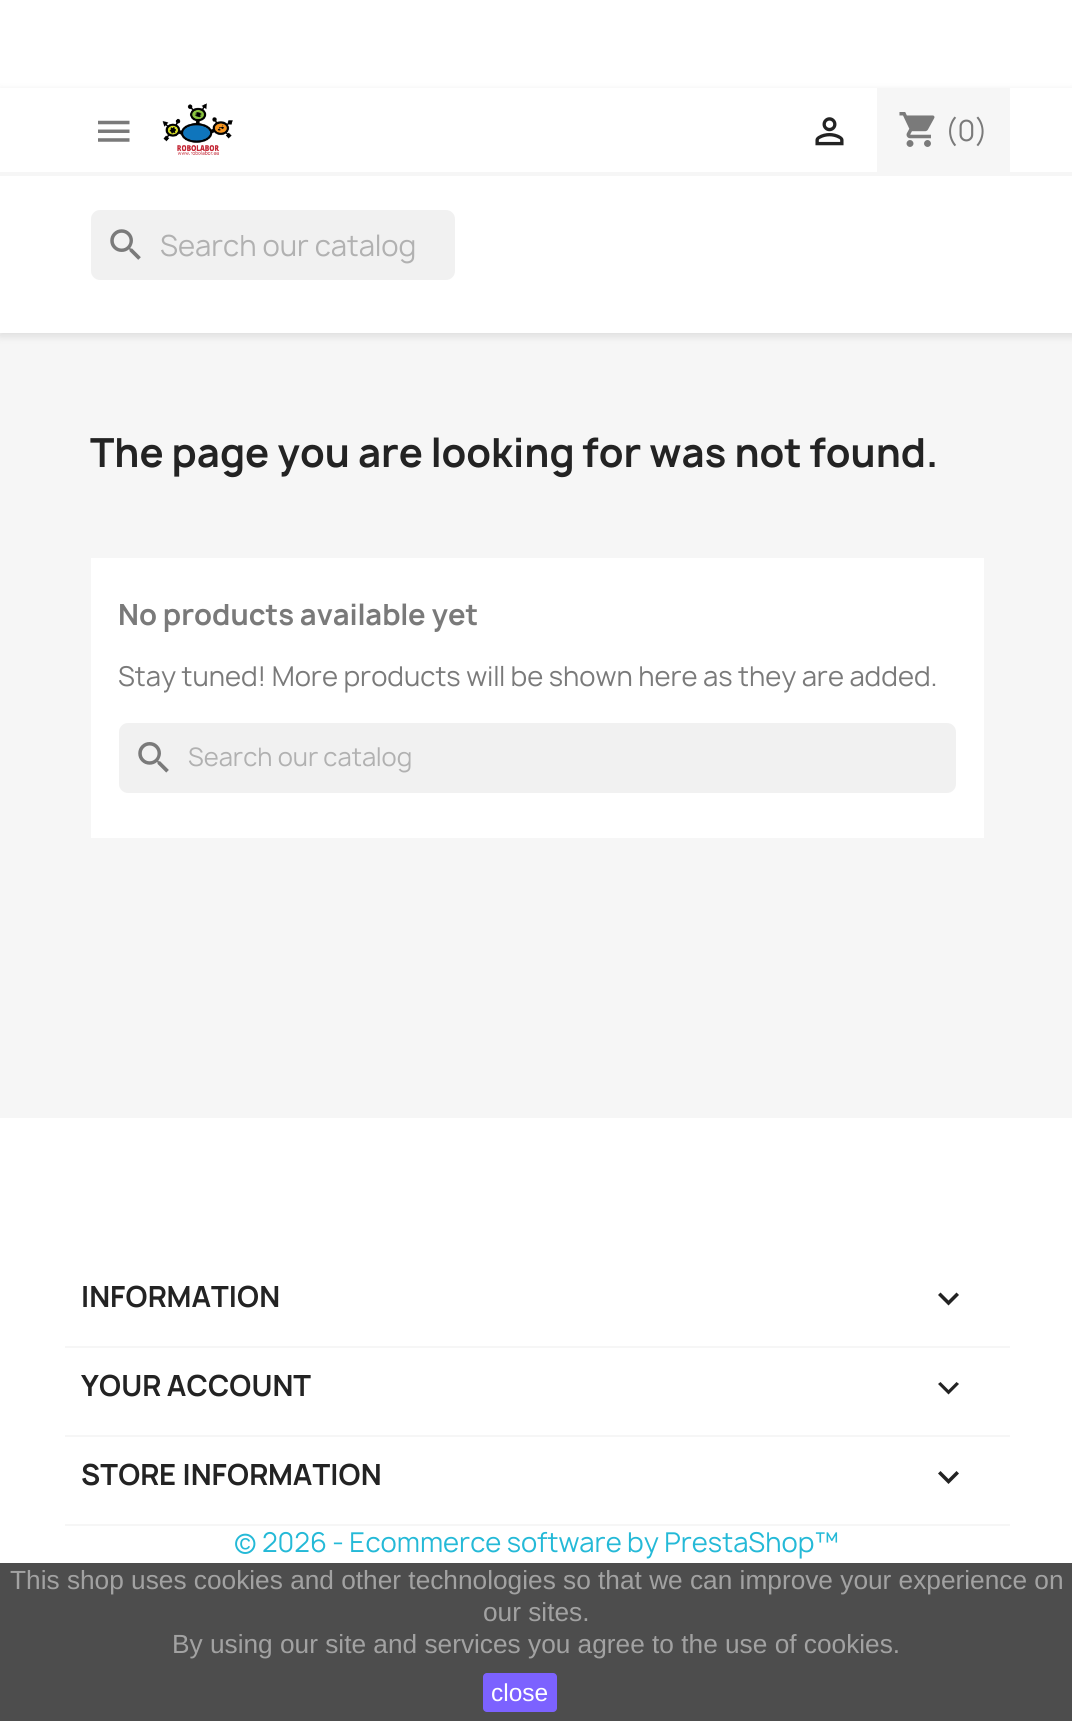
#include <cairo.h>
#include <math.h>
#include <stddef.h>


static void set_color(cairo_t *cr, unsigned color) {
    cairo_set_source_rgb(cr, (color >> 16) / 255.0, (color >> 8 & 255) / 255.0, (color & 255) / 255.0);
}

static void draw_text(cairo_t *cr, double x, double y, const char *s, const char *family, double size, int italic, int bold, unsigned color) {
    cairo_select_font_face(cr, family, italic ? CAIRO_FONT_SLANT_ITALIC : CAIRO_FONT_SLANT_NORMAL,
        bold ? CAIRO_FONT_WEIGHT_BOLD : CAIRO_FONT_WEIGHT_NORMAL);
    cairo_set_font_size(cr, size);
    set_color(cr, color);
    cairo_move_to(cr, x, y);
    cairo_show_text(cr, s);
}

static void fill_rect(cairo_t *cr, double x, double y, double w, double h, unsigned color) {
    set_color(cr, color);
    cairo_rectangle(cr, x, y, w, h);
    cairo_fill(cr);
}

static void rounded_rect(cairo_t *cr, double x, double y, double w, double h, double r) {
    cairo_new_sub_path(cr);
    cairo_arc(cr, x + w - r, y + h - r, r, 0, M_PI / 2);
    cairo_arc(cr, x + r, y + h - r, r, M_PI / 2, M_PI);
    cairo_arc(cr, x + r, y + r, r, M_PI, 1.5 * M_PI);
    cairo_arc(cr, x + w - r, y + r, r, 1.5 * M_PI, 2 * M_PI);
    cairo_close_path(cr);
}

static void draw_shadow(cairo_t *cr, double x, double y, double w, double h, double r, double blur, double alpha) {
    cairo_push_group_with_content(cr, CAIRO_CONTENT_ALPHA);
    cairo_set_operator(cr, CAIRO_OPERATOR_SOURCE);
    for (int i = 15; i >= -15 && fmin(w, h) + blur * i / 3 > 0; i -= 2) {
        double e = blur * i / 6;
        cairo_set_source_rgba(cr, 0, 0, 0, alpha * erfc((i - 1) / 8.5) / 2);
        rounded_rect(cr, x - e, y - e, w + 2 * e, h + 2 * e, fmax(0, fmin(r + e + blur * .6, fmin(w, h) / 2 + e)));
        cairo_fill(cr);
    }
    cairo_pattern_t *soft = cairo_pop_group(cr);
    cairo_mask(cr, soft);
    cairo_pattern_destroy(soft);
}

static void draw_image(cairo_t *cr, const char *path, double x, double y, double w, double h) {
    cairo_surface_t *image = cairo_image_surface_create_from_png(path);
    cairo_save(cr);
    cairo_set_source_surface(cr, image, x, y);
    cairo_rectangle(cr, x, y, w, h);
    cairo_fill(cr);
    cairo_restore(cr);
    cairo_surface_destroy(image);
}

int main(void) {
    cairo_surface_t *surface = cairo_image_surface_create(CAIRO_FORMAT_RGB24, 1072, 1721);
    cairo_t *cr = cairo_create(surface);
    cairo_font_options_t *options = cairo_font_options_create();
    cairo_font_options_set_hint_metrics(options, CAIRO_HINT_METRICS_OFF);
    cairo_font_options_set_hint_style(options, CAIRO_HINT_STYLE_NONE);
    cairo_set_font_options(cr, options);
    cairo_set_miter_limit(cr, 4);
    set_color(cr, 0xFFFFFF);
    cairo_paint(cr);
    fill_rect(cr, 0, 333, 1072, 785, 0xF6F6F6);
    set_color(cr, 0x000000);
    draw_shadow(cr, 0, 91, 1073, 245, 0, 4.5, 0.11);
    fill_rect(cr, 0, 88, 1072, 245, 0xFFFFFF);
    fill_rect(cr, 0, 172, 1072, 4, 0xF6F6F6);
    draw_image(cr, "assets/img1.png", 98, 120, 32, 22);
    draw_image(cr, "assets/img2.png", 162, 103, 71, 52);
    draw_image(cr, "assets/img3.png", 815, 117, 29, 29);
    fill_rect(cr, 877, 88, 133, 84, 0xF6F6F6);
    draw_image(cr, "assets/img4.png", 899, 112, 36, 35);
    draw_text(cr, 945, 141, "(0)", "Manrope", 28, 0, 0, 0x7A7A7A);
    set_color(cr, 0xF1F1F1);
    rounded_rect(cr, 91, 210, 364, 70, 9);
    cairo_fill(cr);
    draw_image(cr, "assets/img5.png", 110, 229, 31, 31);
    draw_text(cr, 160, 256, "Search our catalog", "Manrope", 28, 0, 0, 0xB1B1B1);
    draw_text(cr, 90, 467, "The page you are looking for was not found.", "Manrope", 38.5, 0, 1, 0x232323);
    fill_rect(cr, 91, 558, 893, 280, 0xFFFFFF);
    draw_text(cr, 118, 625, "No products available yet", "Manrope", 28, 0, 1, 0x7A7A7A);
    draw_text(cr, 118, 686, "Stay tuned! More products will be shown here as they are added.", "Manrope", 26.25, 0, 0, 0x7A7A7A);
    set_color(cr, 0xF1F1F1);
    rounded_rect(cr, 119, 723, 837, 70, 9);
    cairo_fill(cr);
    draw_image(cr, "assets/img6.png", 138, 742, 31, 31);
    draw_text(cr, 188, 766, "Search our catalog", "Manrope", 24.5, 0, 0, 0xB1B1B1);
    fill_rect(cr, 65, 1346, 945, 2, 0xF6F6F6);
    draw_text(cr, 81, 1307, "INFORMATION", "Manrope", 28, 0, 1, 0x232323);
    cairo_new_path(cr);
    cairo_move_to(cr, 940.5, 1292.5);
    cairo_line_to(cr, 948.5, 1300.5);
    cairo_line_to(cr, 956.5, 1292.5);
    cairo_line_to(cr, 959, 1295);
    cairo_line_to(cr, 948.5, 1305.5);
    cairo_line_to(cr, 938, 1295);
    cairo_close_path(cr);
    cairo_fill(cr);
    fill_rect(cr, 65, 1435, 945, 2, 0xF6F6F6);
    draw_text(cr, 81, 1396, "YOUR ACCOUNT", "Manrope", 28, 0, 1, 0x232323);
    cairo_new_path(cr);
    cairo_move_to(cr, 940.5, 1382);
    cairo_line_to(cr, 948.5, 1390);
    cairo_line_to(cr, 956.5, 1382);
    cairo_line_to(cr, 959, 1384);
    cairo_line_to(cr, 948.5, 1394.5);
    cairo_line_to(cr, 938, 1384);
    cairo_close_path(cr);
    cairo_fill(cr);
    fill_rect(cr, 65, 1524, 945, 2, 0xF6F6F6);
    draw_text(cr, 81, 1485, "STORE INFORMATION", "Manrope", 28, 0, 1, 0x232323);
    cairo_new_path(cr);
    cairo_move_to(cr, 940.5, 1471);
    cairo_line_to(cr, 948.5, 1479);
    cairo_line_to(cr, 956.5, 1471);
    cairo_line_to(cr, 959, 1473.5);
    cairo_line_to(cr, 948.5, 1484);
    cairo_line_to(cr, 938, 1473.5);
    cairo_close_path(cr);
    cairo_fill(cr);
    set_color(cr, 0xFFFFFF);
    draw_shadow(cr, 0, 1563, 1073, 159, 0, 9, 0.7);
    fill_rect(cr, 0, 1563, 1072, 158, 0x4D4D4D);
    draw_text(cr, 10, 1589, "This shop uses cookies and other technologies so that we can improve your experience on", "Liberation Sans", 26.25, 0, 0, 0xA2A2A2);
    draw_text(cr, 483, 1621, "our sites.", "Liberation Sans", 26.25, 0, 0, 0xA2A2A2);
    draw_text(cr, 172, 1653, "By using our site and services you agree to the use of cookies.", "Liberation Sans", 26.25, 0, 0, 0xA2A2A2);
    set_color(cr, 0x7C62FF);
    rounded_rect(cr, 483, 1673, 74, 39, 4);
    cairo_fill(cr);
    draw_text(cr, 491, 1701, "close", "Liberation Sans", 24.5, 0, 0, 0xFFFFFF);
    draw_text(cr, 234, 1552, "© 2026 - Ecommerce software by PrestaShop™", "Manrope", 26.25, 0, 0, 0x24B9D7);
    cairo_surface_write_to_png(surface, "output.png");
    cairo_font_options_destroy(options);
    cairo_destroy(cr);
    cairo_surface_destroy(surface);
    return 0;
}
